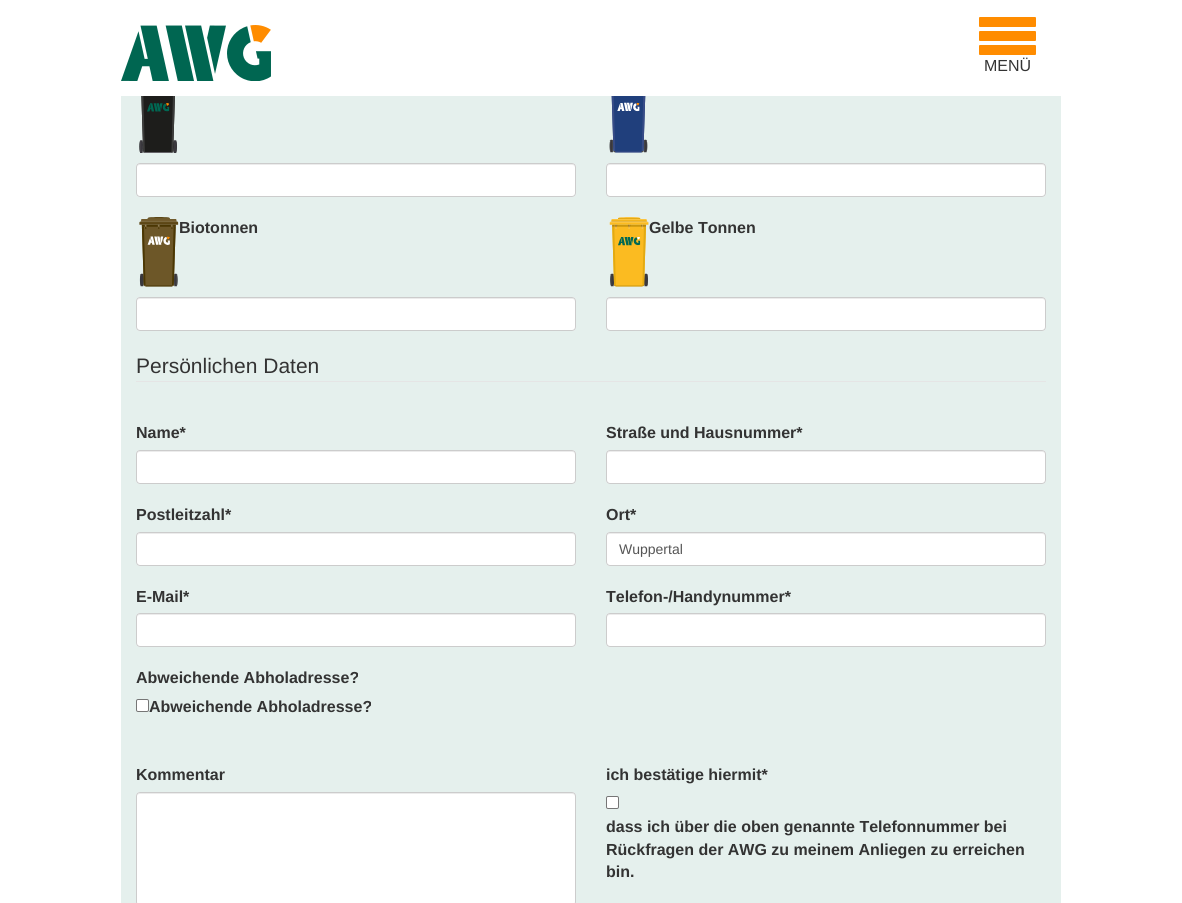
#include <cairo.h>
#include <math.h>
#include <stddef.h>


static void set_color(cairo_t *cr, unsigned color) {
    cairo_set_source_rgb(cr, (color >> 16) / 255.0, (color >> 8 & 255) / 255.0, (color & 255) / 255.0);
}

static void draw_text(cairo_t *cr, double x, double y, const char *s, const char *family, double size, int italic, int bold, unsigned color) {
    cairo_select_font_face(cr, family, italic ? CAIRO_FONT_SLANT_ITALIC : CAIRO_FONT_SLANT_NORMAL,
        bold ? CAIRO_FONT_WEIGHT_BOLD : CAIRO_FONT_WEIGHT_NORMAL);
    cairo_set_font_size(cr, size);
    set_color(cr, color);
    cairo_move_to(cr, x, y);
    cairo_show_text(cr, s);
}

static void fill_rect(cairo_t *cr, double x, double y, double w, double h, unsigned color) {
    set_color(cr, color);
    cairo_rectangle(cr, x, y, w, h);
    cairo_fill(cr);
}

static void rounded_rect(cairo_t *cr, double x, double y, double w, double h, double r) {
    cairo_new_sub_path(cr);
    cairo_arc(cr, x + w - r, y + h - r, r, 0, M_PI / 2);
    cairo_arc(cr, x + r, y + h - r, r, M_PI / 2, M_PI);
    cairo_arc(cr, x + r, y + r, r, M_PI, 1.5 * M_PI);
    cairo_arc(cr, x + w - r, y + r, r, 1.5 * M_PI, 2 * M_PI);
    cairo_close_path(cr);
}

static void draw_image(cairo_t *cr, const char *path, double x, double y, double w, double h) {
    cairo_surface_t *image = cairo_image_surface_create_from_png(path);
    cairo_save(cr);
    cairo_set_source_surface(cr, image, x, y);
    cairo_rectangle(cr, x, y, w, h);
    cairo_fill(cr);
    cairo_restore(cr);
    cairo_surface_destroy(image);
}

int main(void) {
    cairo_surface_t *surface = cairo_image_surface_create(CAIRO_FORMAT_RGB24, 1182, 903);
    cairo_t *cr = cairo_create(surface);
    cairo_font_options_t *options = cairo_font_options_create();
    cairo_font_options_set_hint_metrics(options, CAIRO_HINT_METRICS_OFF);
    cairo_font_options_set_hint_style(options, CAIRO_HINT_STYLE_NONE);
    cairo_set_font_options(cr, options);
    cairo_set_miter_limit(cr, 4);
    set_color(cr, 0xFFFFFF);
    cairo_paint(cr);
    draw_image(cr, "assets/img1.png", 121, 25, 150, 56);
    set_color(cr, 0xFF8C00);
    rounded_rect(cr, 979, 17, 57, 10, 1);
    cairo_fill(cr);
    rounded_rect(cr, 979, 31, 57, 10, 1);
    cairo_fill(cr);
    rounded_rect(cr, 979, 45, 57, 10, 1);
    cairo_fill(cr);
    draw_text(cr, 984, 71, "MENÜ", "Liberation Sans", 16, 0, 0, 0x333333);
    fill_rect(cr, 121, 96, 940, 807, 0xE5F0ED);
    draw_image(cr, "assets/img2.png", 139, 96, 38, 57);
    set_color(cr, 0xFFFFFF);
    rounded_rect(cr, 136, 163, 440, 34, 4);
    cairo_fill(cr);
    set_color(cr, 0xECECEC);
    cairo_new_path(cr);
    cairo_move_to(cr, 140, 165);
    cairo_line_to(cr, 572, 165);
    cairo_curve_to(cr, 574, 165, 575, 166, 575, 168);
    cairo_line_to(cr, 575, 166);
    cairo_line_to(cr, 573, 164);
    cairo_line_to(cr, 140, 164);
    cairo_curve_to(cr, 138, 164, 137, 166, 137, 168);
    cairo_curve_to(cr, 137, 166, 138, 165, 140, 165);
    cairo_close_path(cr);
    cairo_fill(cr);
    rounded_rect(cr, 136.5, 163.5, 439, 33, 3.5);
    set_color(cr, 0xCCCCCC);
    cairo_set_line_width(cr, 1);
    cairo_stroke(cr);
    draw_image(cr, "assets/img3.png", 609, 96, 39, 57);
    set_color(cr, 0xFFFFFF);
    rounded_rect(cr, 606, 163, 440, 34, 4);
    cairo_fill(cr);
    set_color(cr, 0xECECEC);
    cairo_new_path(cr);
    cairo_move_to(cr, 610, 165);
    cairo_line_to(cr, 1042, 165);
    cairo_curve_to(cr, 1044, 165, 1045, 166, 1045, 168);
    cairo_curve_to(cr, 1045, 166, 1044, 164, 1042, 164);
    cairo_line_to(cr, 609, 164);
    cairo_line_to(cr, 607, 166);
    cairo_line_to(cr, 607, 168);
    cairo_curve_to(cr, 607, 166, 608, 165, 610, 165);
    cairo_close_path(cr);
    cairo_fill(cr);
    rounded_rect(cr, 606.5, 163.5, 439, 33, 3.5);
    set_color(cr, 0xCCCCCC);
    cairo_stroke(cr);
    draw_image(cr, "assets/img4.png", 139, 217, 40, 70);
    draw_text(cr, 179, 233, "Biotonnen", "Liberation Sans", 16, 0, 1, 0x333333);
    set_color(cr, 0xFFFFFF);
    rounded_rect(cr, 136, 297, 440, 34, 4);
    cairo_fill(cr);
    set_color(cr, 0xECECEC);
    cairo_new_path(cr);
    cairo_move_to(cr, 140, 299);
    cairo_line_to(cr, 572, 299);
    cairo_curve_to(cr, 574, 299, 575, 300, 575, 302);
    cairo_line_to(cr, 575, 300);
    cairo_line_to(cr, 573, 298);
    cairo_line_to(cr, 140, 298);
    cairo_curve_to(cr, 138, 298, 137, 300, 137, 302);
    cairo_curve_to(cr, 137, 300, 138, 299, 140, 299);
    cairo_close_path(cr);
    cairo_fill(cr);
    rounded_rect(cr, 136.5, 297.5, 439, 33, 3.5);
    set_color(cr, 0xCCCCCC);
    cairo_stroke(cr);
    draw_image(cr, "assets/img5.png", 609, 217, 40, 70);
    draw_text(cr, 649, 233, "Gelbe Tonnen", "Liberation Sans", 16, 0, 1, 0x333333);
    set_color(cr, 0xFFFFFF);
    rounded_rect(cr, 606, 297, 440, 34, 4);
    cairo_fill(cr);
    set_color(cr, 0xECECEC);
    cairo_new_path(cr);
    cairo_move_to(cr, 610, 299);
    cairo_line_to(cr, 1042, 299);
    cairo_curve_to(cr, 1044, 299, 1045, 300, 1045, 302);
    cairo_curve_to(cr, 1045, 300, 1044, 298, 1042, 298);
    cairo_line_to(cr, 609, 298);
    cairo_line_to(cr, 607, 300);
    cairo_line_to(cr, 607, 302);
    cairo_curve_to(cr, 607, 300, 608, 299, 610, 299);
    cairo_close_path(cr);
    cairo_fill(cr);
    rounded_rect(cr, 606.5, 297.5, 439, 33, 3.5);
    set_color(cr, 0xCCCCCC);
    cairo_stroke(cr);
    fill_rect(cr, 136, 381, 910, 1, 0xE5E5E5);
    draw_text(cr, 136, 373, "Persönlichen Daten", "Liberation Sans", 21, 0, 0, 0x333333);
    draw_text(cr, 136, 438, "Name*", "Liberation Sans", 16, 0, 1, 0x333333);
    set_color(cr, 0xFFFFFF);
    rounded_rect(cr, 136, 450, 440, 34, 4);
    cairo_fill(cr);
    set_color(cr, 0xECECEC);
    cairo_new_path(cr);
    cairo_move_to(cr, 140, 452);
    cairo_line_to(cr, 572, 452);
    cairo_curve_to(cr, 574, 452, 575, 453, 575, 455);
    cairo_line_to(cr, 575, 453);
    cairo_line_to(cr, 573, 451);
    cairo_line_to(cr, 140, 451);
    cairo_curve_to(cr, 138, 451, 137, 453, 137, 455);
    cairo_curve_to(cr, 137, 453, 138, 452, 140, 452);
    cairo_close_path(cr);
    cairo_fill(cr);
    rounded_rect(cr, 136.5, 450.5, 439, 33, 3.5);
    set_color(cr, 0xCCCCCC);
    cairo_stroke(cr);
    draw_text(cr, 606, 438, "Straße und Hausnummer*", "Liberation Sans", 16, 0, 1, 0x333333);
    set_color(cr, 0xFFFFFF);
    rounded_rect(cr, 606, 450, 440, 34, 4);
    cairo_fill(cr);
    set_color(cr, 0xECECEC);
    cairo_new_path(cr);
    cairo_move_to(cr, 610, 452);
    cairo_line_to(cr, 1042, 452);
    cairo_curve_to(cr, 1044, 452, 1045, 453, 1045, 455);
    cairo_curve_to(cr, 1045, 453, 1044, 451, 1042, 451);
    cairo_line_to(cr, 609, 451);
    cairo_line_to(cr, 607, 453);
    cairo_line_to(cr, 607, 455);
    cairo_curve_to(cr, 607, 453, 608, 452, 610, 452);
    cairo_close_path(cr);
    cairo_fill(cr);
    rounded_rect(cr, 606.5, 450.5, 439, 33, 3.5);
    set_color(cr, 0xCCCCCC);
    cairo_stroke(cr);
    draw_text(cr, 136, 520, "Postleitzahl*", "Liberation Sans", 16, 0, 1, 0x333333);
    set_color(cr, 0xFFFFFF);
    rounded_rect(cr, 136, 532, 440, 34, 4);
    cairo_fill(cr);
    set_color(cr, 0xECECEC);
    cairo_new_path(cr);
    cairo_move_to(cr, 140, 534);
    cairo_line_to(cr, 572, 534);
    cairo_curve_to(cr, 574, 534, 575, 535, 575, 537);
    cairo_line_to(cr, 575, 535);
    cairo_line_to(cr, 573, 533);
    cairo_line_to(cr, 140, 533);
    cairo_curve_to(cr, 138, 533, 137, 535, 137, 537);
    cairo_curve_to(cr, 137, 535, 138, 534, 140, 534);
    cairo_close_path(cr);
    cairo_fill(cr);
    rounded_rect(cr, 136.5, 532.5, 439, 33, 3.5);
    set_color(cr, 0xCCCCCC);
    cairo_stroke(cr);
    draw_text(cr, 606, 520, "Ort*", "Liberation Sans", 16, 0, 1, 0x333333);
    set_color(cr, 0xFFFFFF);
    rounded_rect(cr, 606, 532, 440, 34, 4);
    cairo_fill(cr);
    set_color(cr, 0xECECEC);
    cairo_new_path(cr);
    cairo_move_to(cr, 610, 534);
    cairo_line_to(cr, 1042, 534);
    cairo_curve_to(cr, 1044, 534, 1045, 535, 1045, 537);
    cairo_line_to(cr, 1045, 535);
    cairo_line_to(cr, 1043, 533);
    cairo_line_to(cr, 610, 533);
    cairo_curve_to(cr, 608, 533, 607, 535, 607, 537);
    cairo_curve_to(cr, 607, 535, 608, 534, 610, 534);
    cairo_close_path(cr);
    cairo_fill(cr);
    rounded_rect(cr, 606.5, 532.5, 439, 33, 3.5);
    set_color(cr, 0xCCCCCC);
    cairo_stroke(cr);
    draw_text(cr, 619, 554, "Wuppertal", "Liberation Sans", 14, 0, 0, 0x555555);
    draw_text(cr, 136, 602, "E-Mail*", "Liberation Sans", 16, 0, 1, 0x333333);
    set_color(cr, 0xFFFFFF);
    rounded_rect(cr, 136, 613, 440, 34, 4);
    cairo_fill(cr);
    set_color(cr, 0xECECEC);
    cairo_new_path(cr);
    cairo_move_to(cr, 140, 615);
    cairo_line_to(cr, 572, 615);
    cairo_curve_to(cr, 574, 615, 575, 616, 575, 618);
    cairo_line_to(cr, 575, 616);
    cairo_line_to(cr, 573, 614);
    cairo_line_to(cr, 140, 614);
    cairo_curve_to(cr, 138, 614, 137, 616, 137, 618);
    cairo_curve_to(cr, 137, 616, 138, 615, 140, 615);
    cairo_close_path(cr);
    cairo_fill(cr);
    rounded_rect(cr, 136.5, 613.5, 439, 33, 3.5);
    set_color(cr, 0xCCCCCC);
    cairo_stroke(cr);
    draw_text(cr, 606, 602, "Telefon-/Handynummer*", "Liberation Sans", 16, 0, 1, 0x333333);
    set_color(cr, 0xFFFFFF);
    rounded_rect(cr, 606, 613, 440, 34, 4);
    cairo_fill(cr);
    set_color(cr, 0xECECEC);
    cairo_new_path(cr);
    cairo_move_to(cr, 610, 615);
    cairo_line_to(cr, 1042, 615);
    cairo_curve_to(cr, 1044, 615, 1045, 616, 1045, 618);
    cairo_curve_to(cr, 1045, 616, 1044, 614, 1042, 614);
    cairo_line_to(cr, 609, 614);
    cairo_line_to(cr, 607, 616);
    cairo_line_to(cr, 607, 618);
    cairo_curve_to(cr, 607, 616, 608, 615, 610, 615);
    cairo_close_path(cr);
    cairo_fill(cr);
    rounded_rect(cr, 606.5, 613.5, 439, 33, 3.5);
    set_color(cr, 0xCCCCCC);
    cairo_stroke(cr);
    draw_text(cr, 136, 683, "Abweichende Abholadresse?", "Liberation Sans", 16, 0, 1, 0x333333);
    set_color(cr, 0xFFFFFF);
    rounded_rect(cr, 136.5, 699.5, 12, 12, 1.5);
    cairo_fill_preserve(cr);
    set_color(cr, 0x767676);
    cairo_stroke(cr);
    draw_text(cr, 149, 712, "Abweichende Abholadresse?", "Liberation Sans", 16, 0, 1, 0x333333);
    draw_text(cr, 136, 780, "Kommentar", "Liberation Sans", 16, 0, 1, 0x333333);
    set_color(cr, 0xFFFFFF);
    rounded_rect(cr, 136, 792, 440, 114, 4);
    cairo_fill(cr);
    set_color(cr, 0xECECEC);
    cairo_new_path(cr);
    cairo_move_to(cr, 140, 794);
    cairo_line_to(cr, 572, 794);
    cairo_curve_to(cr, 574, 794, 575, 795, 575, 797);
    cairo_line_to(cr, 575, 795);
    cairo_line_to(cr, 573, 793);
    cairo_line_to(cr, 140, 793);
    cairo_curve_to(cr, 138, 793, 137, 795, 137, 797);
    cairo_curve_to(cr, 137, 795, 138, 794, 140, 794);
    cairo_close_path(cr);
    cairo_fill(cr);
    rounded_rect(cr, 136.5, 792.5, 439, 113, 3.5);
    set_color(cr, 0xCCCCCC);
    cairo_stroke(cr);
    draw_text(cr, 606, 780, "ich bestätige hiermit*", "Liberation Sans", 16, 0, 1, 0x333333);
    set_color(cr, 0xFFFFFF);
    rounded_rect(cr, 606.5, 796.5, 12, 12, 1.5);
    cairo_fill_preserve(cr);
    set_color(cr, 0x767676);
    cairo_stroke(cr);
    draw_text(cr, 606, 832, "dass ich über die oben genannte Telefonnummer bei", "Liberation Sans", 16, 0, 1, 0x333333);
    draw_text(cr, 606, 855, "Rückfragen der AWG zu meinem Anliegen zu erreichen", "Liberation Sans", 16, 0, 1, 0x333333);
    draw_text(cr, 606, 877, "bin.", "Liberation Sans", 16, 0, 1, 0x333333);
    cairo_surface_write_to_png(surface, "output.png");
    cairo_font_options_destroy(options);
    cairo_destroy(cr);
    cairo_surface_destroy(surface);
    return 0;
}
